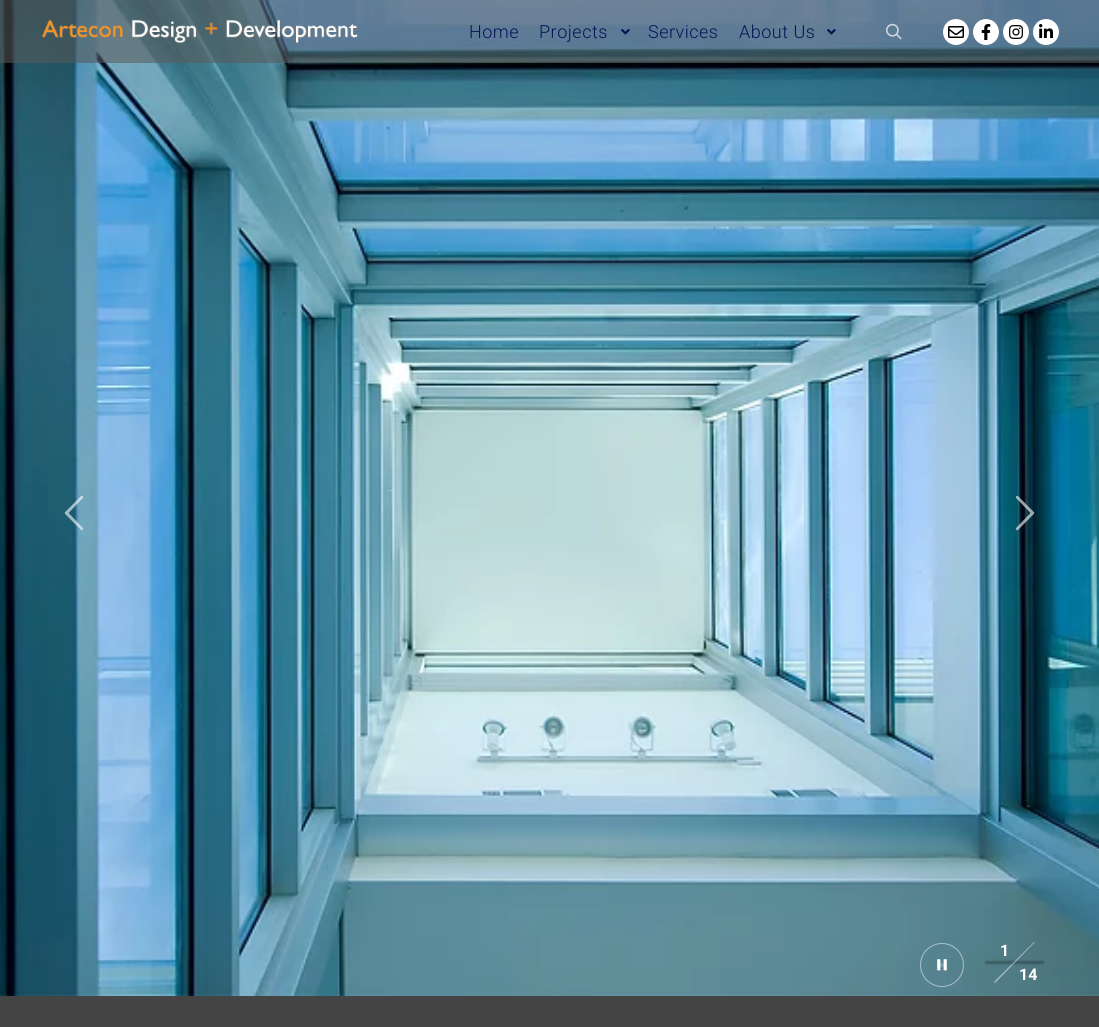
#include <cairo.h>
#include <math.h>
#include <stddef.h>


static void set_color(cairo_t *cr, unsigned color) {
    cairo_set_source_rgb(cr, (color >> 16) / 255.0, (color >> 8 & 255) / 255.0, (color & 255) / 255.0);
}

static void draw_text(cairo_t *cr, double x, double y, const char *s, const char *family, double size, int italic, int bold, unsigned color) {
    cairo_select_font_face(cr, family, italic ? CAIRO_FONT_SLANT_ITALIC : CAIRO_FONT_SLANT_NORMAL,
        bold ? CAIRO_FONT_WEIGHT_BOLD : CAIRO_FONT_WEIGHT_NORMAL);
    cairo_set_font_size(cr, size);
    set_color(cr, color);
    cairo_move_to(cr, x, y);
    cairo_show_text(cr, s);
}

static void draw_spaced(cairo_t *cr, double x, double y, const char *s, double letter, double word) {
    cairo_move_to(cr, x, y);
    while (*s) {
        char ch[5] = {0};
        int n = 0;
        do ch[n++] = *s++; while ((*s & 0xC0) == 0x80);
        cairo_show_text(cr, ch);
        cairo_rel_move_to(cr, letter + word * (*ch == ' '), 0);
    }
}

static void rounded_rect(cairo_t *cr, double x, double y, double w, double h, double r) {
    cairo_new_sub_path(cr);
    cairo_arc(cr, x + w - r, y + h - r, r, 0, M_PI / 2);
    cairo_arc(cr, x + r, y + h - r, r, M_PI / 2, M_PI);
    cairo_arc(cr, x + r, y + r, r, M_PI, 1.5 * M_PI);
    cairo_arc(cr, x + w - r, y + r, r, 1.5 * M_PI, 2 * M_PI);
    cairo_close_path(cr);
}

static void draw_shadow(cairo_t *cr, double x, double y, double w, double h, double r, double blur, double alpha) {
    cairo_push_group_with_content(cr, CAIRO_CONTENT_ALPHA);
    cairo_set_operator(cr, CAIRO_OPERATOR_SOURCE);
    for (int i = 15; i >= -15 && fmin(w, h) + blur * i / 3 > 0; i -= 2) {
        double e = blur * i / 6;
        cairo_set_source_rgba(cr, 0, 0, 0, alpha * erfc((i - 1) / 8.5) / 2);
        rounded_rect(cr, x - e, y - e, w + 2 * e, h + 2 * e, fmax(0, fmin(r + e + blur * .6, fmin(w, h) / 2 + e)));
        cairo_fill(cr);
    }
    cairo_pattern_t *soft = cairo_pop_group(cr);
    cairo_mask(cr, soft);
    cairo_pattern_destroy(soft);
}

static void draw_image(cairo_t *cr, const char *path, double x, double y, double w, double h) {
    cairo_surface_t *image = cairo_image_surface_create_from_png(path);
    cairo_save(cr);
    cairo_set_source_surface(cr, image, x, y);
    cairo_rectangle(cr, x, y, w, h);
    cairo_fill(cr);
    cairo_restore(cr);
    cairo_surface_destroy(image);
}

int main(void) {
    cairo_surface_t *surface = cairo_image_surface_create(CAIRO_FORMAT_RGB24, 1099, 1027);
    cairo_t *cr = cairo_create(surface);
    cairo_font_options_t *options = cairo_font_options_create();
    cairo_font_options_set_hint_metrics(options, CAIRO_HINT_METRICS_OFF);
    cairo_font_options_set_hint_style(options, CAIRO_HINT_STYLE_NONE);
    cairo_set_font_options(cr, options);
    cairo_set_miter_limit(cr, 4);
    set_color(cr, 0x444444);
    cairo_paint(cr);
    draw_image(cr, "assets/img9.png", 0, 0, 1099, 996);
    cairo_set_source_rgba(cr, 0.349, 0.349, 0.349, 0.56);
    cairo_rectangle(cr, 0, 0, 1099, 63);
    cairo_fill(cr);
    draw_image(cr, "assets/img1.png", 42, 20, 316, 23);
    cairo_select_font_face(cr, "Roboto Light", CAIRO_FONT_SLANT_NORMAL, CAIRO_FONT_WEIGHT_NORMAL);
    cairo_set_font_size(cr, 18);
    set_color(cr, 0x061356);
    draw_spaced(cr, 469, 38, "Home", 0.5, 0);
    draw_spaced(cr, 539, 38, "Projects", 0.5, 0);
    draw_image(cr, "assets/img2.png", 621, 29, 9, 6);
    draw_spaced(cr, 648, 38, "Services", 0.5, 0);
    draw_spaced(cr, 739, 38, "About Us", 0.5, 0);
    draw_image(cr, "assets/img3.png", 827, 29, 9, 6);
    draw_image(cr, "assets/img4.png", 886, 23, 16, 17);
    set_color(cr, 0xFFFFFF);
    cairo_arc(cr, 956, 32, 13, 0, 2 * M_PI);
    cairo_fill(cr);
    draw_image(cr, "assets/img5.png", 948, 26, 16, 12);
    cairo_arc(cr, 986, 32, 13, 0, 2 * M_PI);
    cairo_fill(cr);
    draw_image(cr, "assets/img6.png", 981, 24, 10, 16);
    cairo_arc(cr, 1016, 32, 13, 0, 2 * M_PI);
    cairo_fill(cr);
    draw_image(cr, "assets/img7.png", 1009, 25, 14, 14);
    cairo_arc(cr, 1046, 32, 13, 0, 2 * M_PI);
    cairo_fill(cr);
    draw_image(cr, "assets/img8.png", 1039, 24, 14, 14);
    draw_image(cr, "assets/img10.png", 64, 495, 20, 36);
    draw_image(cr, "assets/img11.png", 1015, 495, 20, 36);
    cairo_arc(cr, 942, 965, 21.5, 0, 2 * M_PI);
    cairo_set_source_rgba(cr, 1, 1, 1, 0.5);
    cairo_set_line_width(cr, 1);
    cairo_stroke(cr);
    draw_image(cr, "assets/img12.png", 937, 959, 10, 12);
    cairo_set_source_rgba(cr, 1, 1, 1, 0.2);
    cairo_arc(cr, 942, 965, 2, 0, 2 * M_PI);
    cairo_fill(cr);
    set_color(cr, 0x000000);
    draw_shadow(cr, 986, 962, 57, 1, 0, 1.5, 0.5);
    draw_text(cr, 1000, 956, "1", "Roboto", 16, 0, 1, 0xFFFFFF);
    draw_text(cr, 1019, 980, "14", "Roboto", 16, 0, 1, 0xFFFFFF);
    cairo_set_source_rgba(cr, 1, 1, 1, 0.5);
    cairo_new_path(cr);
    cairo_move_to(cr, 994, 982);
    cairo_line_to(cr, 1034, 942);
    cairo_line_to(cr, 1035, 942);
    cairo_line_to(cr, 995, 983);
    cairo_close_path(cr);
    cairo_fill(cr);
    cairo_surface_write_to_png(surface, "output.png");
    cairo_font_options_destroy(options);
    cairo_destroy(cr);
    cairo_surface_destroy(surface);
    return 0;
}
